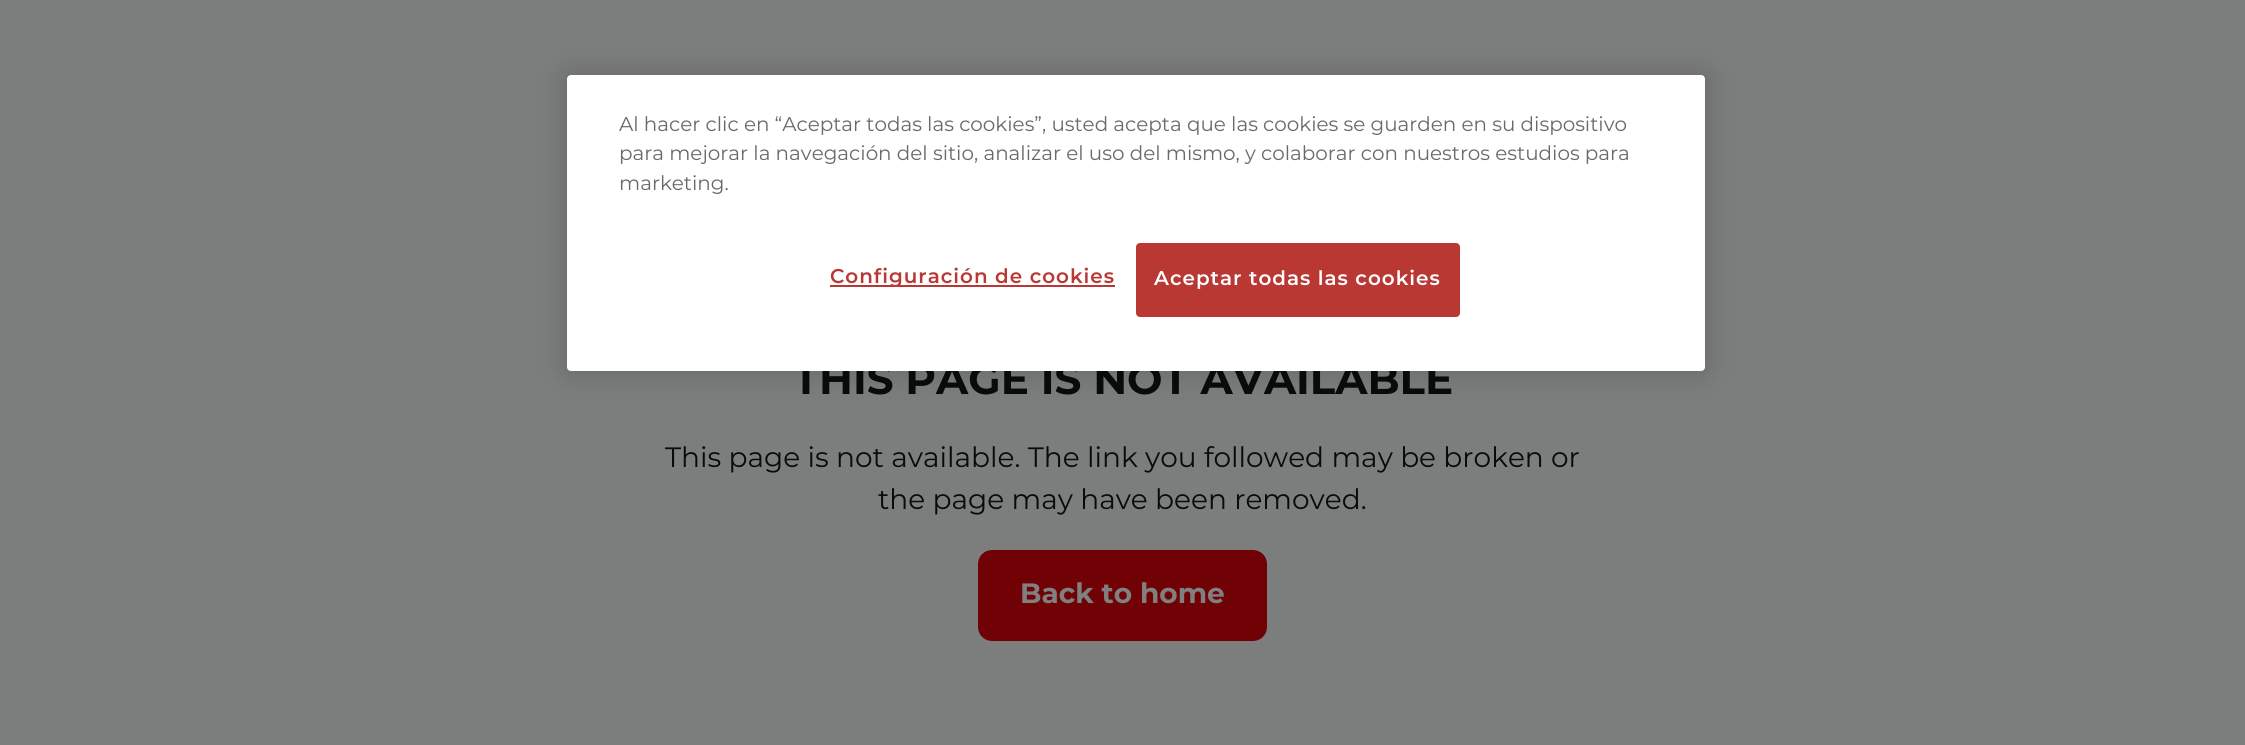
#include <cairo.h>
#include <math.h>
#include <stddef.h>


static void set_color(cairo_t *cr, unsigned color) {
    cairo_set_source_rgb(cr, (color >> 16) / 255.0, (color >> 8 & 255) / 255.0, (color & 255) / 255.0);
}

static void draw_text(cairo_t *cr, double x, double y, const char *s, const char *family, double size, int italic, int bold, unsigned color) {
    cairo_select_font_face(cr, family, italic ? CAIRO_FONT_SLANT_ITALIC : CAIRO_FONT_SLANT_NORMAL,
        bold ? CAIRO_FONT_WEIGHT_BOLD : CAIRO_FONT_WEIGHT_NORMAL);
    cairo_set_font_size(cr, size);
    set_color(cr, color);
    cairo_move_to(cr, x, y);
    cairo_show_text(cr, s);
}

static void draw_spaced(cairo_t *cr, double x, double y, const char *s, double letter, double word) {
    cairo_move_to(cr, x, y);
    while (*s) {
        char ch[5] = {0};
        int n = 0;
        do ch[n++] = *s++; while ((*s & 0xC0) == 0x80);
        cairo_show_text(cr, ch);
        cairo_rel_move_to(cr, letter + word * (*ch == ' '), 0);
    }
}

static void fill_rect(cairo_t *cr, double x, double y, double w, double h, unsigned color) {
    set_color(cr, color);
    cairo_rectangle(cr, x, y, w, h);
    cairo_fill(cr);
}

static void rounded_rect(cairo_t *cr, double x, double y, double w, double h, double r) {
    cairo_new_sub_path(cr);
    cairo_arc(cr, x + w - r, y + h - r, r, 0, M_PI / 2);
    cairo_arc(cr, x + r, y + h - r, r, M_PI / 2, M_PI);
    cairo_arc(cr, x + r, y + r, r, M_PI, 1.5 * M_PI);
    cairo_arc(cr, x + w - r, y + r, r, 1.5 * M_PI, 2 * M_PI);
    cairo_close_path(cr);
}

static void draw_shadow(cairo_t *cr, double x, double y, double w, double h, double r, double blur, double alpha) {
    cairo_push_group_with_content(cr, CAIRO_CONTENT_ALPHA);
    cairo_set_operator(cr, CAIRO_OPERATOR_SOURCE);
    for (int i = 15; i >= -15 && fmin(w, h) + blur * i / 3 > 0; i -= 2) {
        double e = blur * i / 6;
        cairo_set_source_rgba(cr, 0, 0, 0, alpha * erfc((i - 1) / 8.5) / 2);
        rounded_rect(cr, x - e, y - e, w + 2 * e, h + 2 * e, fmax(0, fmin(r + e + blur * .6, fmin(w, h) / 2 + e)));
        cairo_fill(cr);
    }
    cairo_pattern_t *soft = cairo_pop_group(cr);
    cairo_mask(cr, soft);
    cairo_pattern_destroy(soft);
}

int main(void) {
    cairo_surface_t *surface = cairo_image_surface_create(CAIRO_FORMAT_RGB24, 2245, 745);
    cairo_t *cr = cairo_create(surface);
    cairo_font_options_t *options = cairo_font_options_create();
    cairo_font_options_set_hint_metrics(options, CAIRO_HINT_METRICS_OFF);
    cairo_font_options_set_hint_style(options, CAIRO_HINT_STYLE_NONE);
    cairo_set_font_options(cr, options);
    cairo_set_miter_limit(cr, 4);
    set_color(cr, 0x7C7D7D);
    cairo_paint(cr);
    set_color(cr, 0x000000);
    draw_shadow(cr, 567, 75, 1138, 296, 4, 16, 0.2);
    draw_text(cr, 793, 394, "THIS PAGE IS NOT AVAILABLE", "Montserrat", 42, 0, 1, 0x080A0B);
    set_color(cr, 0xFFFFFF);
    rounded_rect(cr, 567, 75, 1138, 296, 4);
    cairo_fill(cr);
    draw_text(cr, 619, 131, "Al hacer clic en “Aceptar todas las cookies”, usted acepta que las cookies se guarden en su dispositivo", "Montserrat", 19.92, 0, 0, 0x696969);
    draw_text(cr, 619, 160, "para mejorar la navegación del sitio, analizar el uso del mismo, y colaborar con nuestros estudios para", "Montserrat", 19.92, 0, 0, 0x696969);
    draw_text(cr, 619, 190, "marketing.", "Montserrat", 19.92, 0, 0, 0x696969);
    fill_rect(cr, 830, 285, 285, 2, 0xB93834);
    cairo_select_font_face(cr, "Montserrat SemiBold", CAIRO_FONT_SLANT_NORMAL, CAIRO_FONT_WEIGHT_NORMAL);
    draw_spaced(cr, 830, 283, "Configuración de cookies", 1, 0);
    rounded_rect(cr, 1137, 244, 322, 72, 3);
    cairo_fill_preserve(cr);
    cairo_stroke(cr);
    set_color(cr, 0xFFFFFF);
    draw_spaced(cr, 1154, 285, "Aceptar todas las cookies", 1, 0);
    draw_text(cr, 665, 467, "This page is not available. The link you followed may be broken or", "Montserrat", 28, 0, 0, 0x080A0B);
    draw_text(cr, 878, 509, "the page may have been removed.", "Montserrat", 28, 0, 0, 0x080A0B);
    set_color(cr, 0x700206);
    rounded_rect(cr, 978, 550, 289, 91, 14);
    cairo_fill(cr);
    draw_text(cr, 1020, 603, "Back to home", "Montserrat", 28, 0, 1, 0x808080);
    cairo_surface_write_to_png(surface, "output.png");
    cairo_font_options_destroy(options);
    cairo_destroy(cr);
    cairo_surface_destroy(surface);
    return 0;
}
